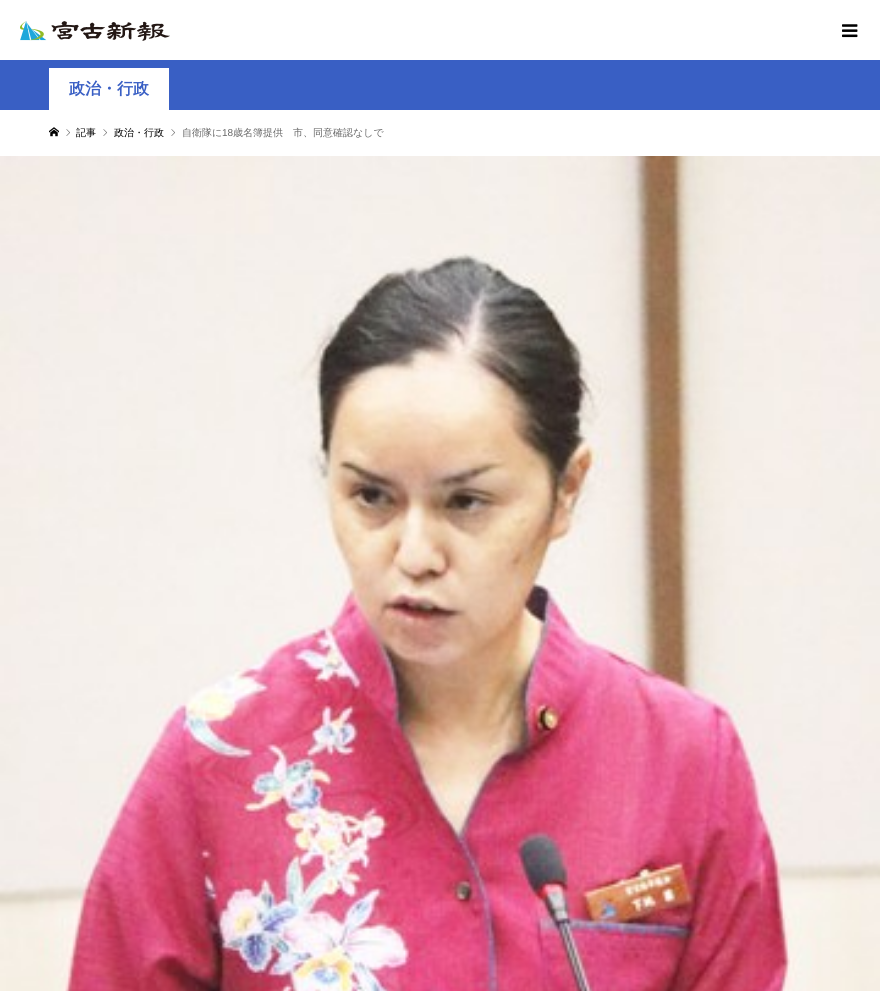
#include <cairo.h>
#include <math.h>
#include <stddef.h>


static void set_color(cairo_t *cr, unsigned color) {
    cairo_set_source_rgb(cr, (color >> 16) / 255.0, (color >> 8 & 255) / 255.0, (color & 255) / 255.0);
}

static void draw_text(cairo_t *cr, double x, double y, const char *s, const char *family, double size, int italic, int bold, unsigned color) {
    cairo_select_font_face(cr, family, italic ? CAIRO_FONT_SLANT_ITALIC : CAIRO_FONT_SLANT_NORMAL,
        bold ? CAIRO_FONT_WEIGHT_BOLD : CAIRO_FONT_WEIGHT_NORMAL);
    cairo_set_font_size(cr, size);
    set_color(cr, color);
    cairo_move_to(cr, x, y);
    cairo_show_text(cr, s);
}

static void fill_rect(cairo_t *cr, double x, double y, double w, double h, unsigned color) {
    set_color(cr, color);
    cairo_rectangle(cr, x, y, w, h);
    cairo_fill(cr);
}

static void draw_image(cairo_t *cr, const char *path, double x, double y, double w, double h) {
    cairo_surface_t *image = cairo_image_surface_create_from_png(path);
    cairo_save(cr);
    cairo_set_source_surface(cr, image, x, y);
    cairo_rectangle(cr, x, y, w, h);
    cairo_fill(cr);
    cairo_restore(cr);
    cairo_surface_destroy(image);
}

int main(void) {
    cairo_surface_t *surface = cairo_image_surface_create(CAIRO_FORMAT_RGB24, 880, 991);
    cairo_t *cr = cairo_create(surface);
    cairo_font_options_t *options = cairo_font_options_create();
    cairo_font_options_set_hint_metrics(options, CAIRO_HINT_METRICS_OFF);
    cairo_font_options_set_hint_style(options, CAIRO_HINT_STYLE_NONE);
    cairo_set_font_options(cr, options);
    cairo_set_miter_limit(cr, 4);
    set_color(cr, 0xFFFFFF);
    cairo_paint(cr);
    draw_image(cr, "assets/img1.png", 20, 21, 150, 20);
    draw_image(cr, "assets/img2.png", 842, 24, 16, 14);
    fill_rect(cr, 0, 60, 880, 50, 0x395FC4);
    fill_rect(cr, 49, 68, 120, 42, 0xFFFFFF);
    draw_text(cr, 69, 94, "政治・行政", "WenQuanYi Zen Hei", 16, 0, 1, 0x395FC4);
    draw_image(cr, "assets/img3.png", 49, 127, 10, 10);
    draw_image(cr, "assets/img4.png", 66, 129, 4, 7);
    draw_text(cr, 76, 136, "記事", "WenQuanYi Zen Hei Medium", 10, 0, 0, 0x000000);
    draw_image(cr, "assets/img4.png", 103, 129, 4, 7);
    draw_text(cr, 114, 136, "政治・行政", "WenQuanYi Zen Hei Medium", 10, 0, 0, 0x000000);
    draw_image(cr, "assets/img4.png", 171, 129, 4, 7);
    draw_text(cr, 182, 136, "自衛隊に", "WenQuanYi Zen Hei Medium", 10, 0, 0, 0x666666);
    draw_text(cr, 222, 136, "18", "Liberation Sans", 10, 0, 0, 0x666666);
    draw_text(cr, 233, 136, "歳名簿提供　市、同意確認なしで", "WenQuanYi Zen Hei Medium", 10, 0, 0, 0x666666);
    draw_image(cr, "assets/img5.png", 0, 156, 880, 835);
    cairo_surface_write_to_png(surface, "output.png");
    cairo_font_options_destroy(options);
    cairo_destroy(cr);
    cairo_surface_destroy(surface);
    return 0;
}
